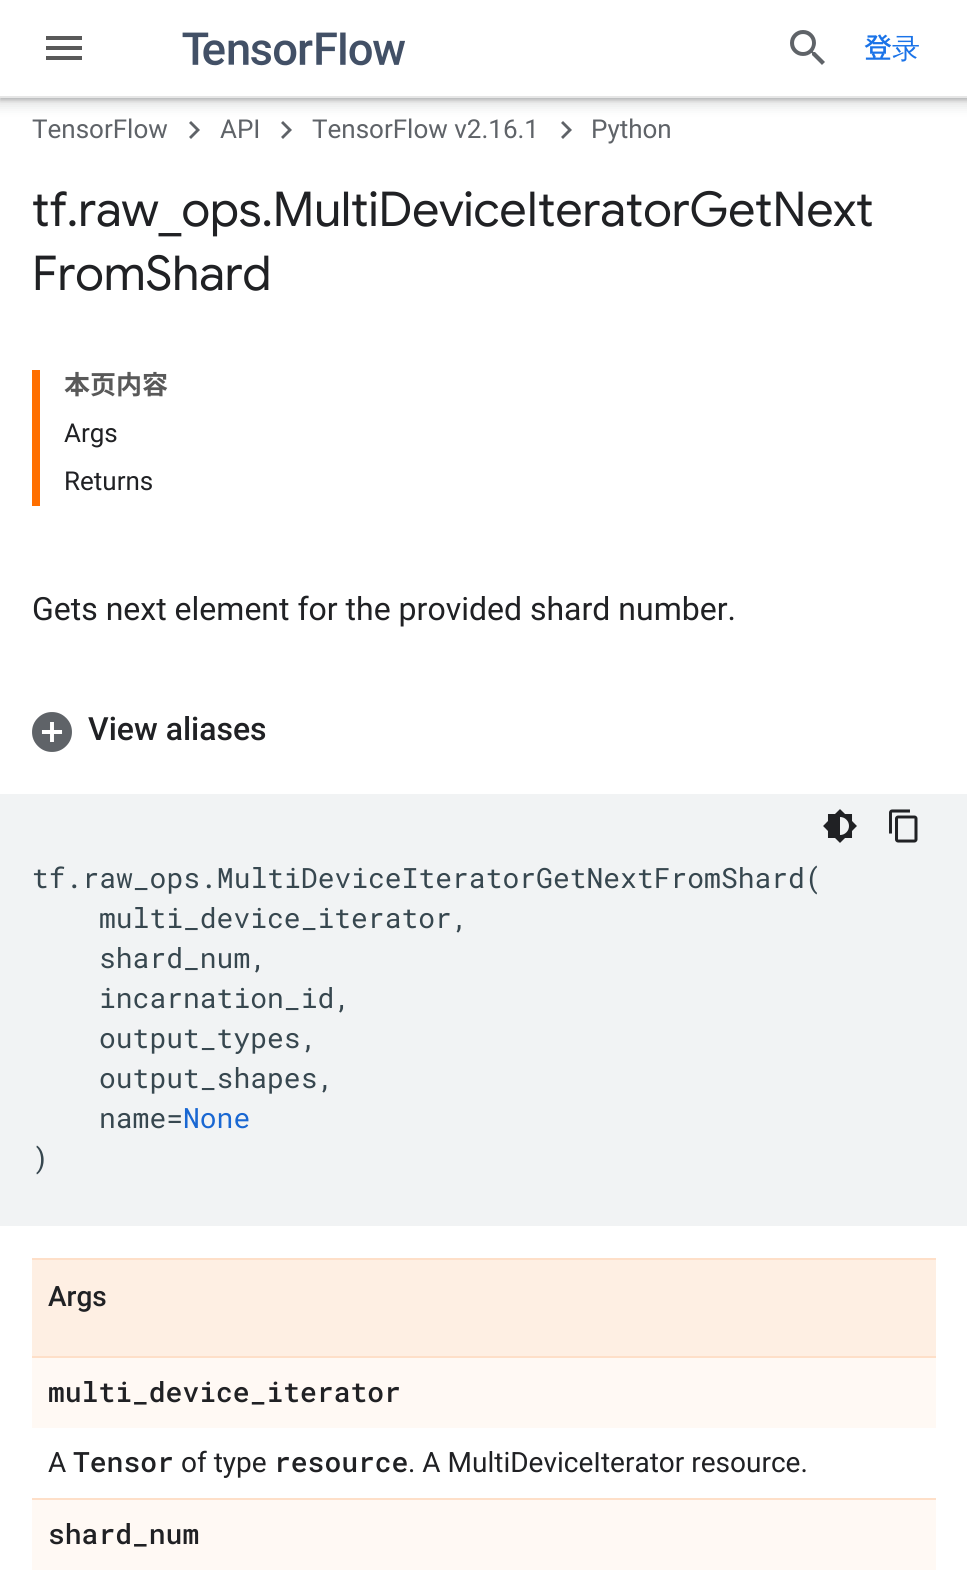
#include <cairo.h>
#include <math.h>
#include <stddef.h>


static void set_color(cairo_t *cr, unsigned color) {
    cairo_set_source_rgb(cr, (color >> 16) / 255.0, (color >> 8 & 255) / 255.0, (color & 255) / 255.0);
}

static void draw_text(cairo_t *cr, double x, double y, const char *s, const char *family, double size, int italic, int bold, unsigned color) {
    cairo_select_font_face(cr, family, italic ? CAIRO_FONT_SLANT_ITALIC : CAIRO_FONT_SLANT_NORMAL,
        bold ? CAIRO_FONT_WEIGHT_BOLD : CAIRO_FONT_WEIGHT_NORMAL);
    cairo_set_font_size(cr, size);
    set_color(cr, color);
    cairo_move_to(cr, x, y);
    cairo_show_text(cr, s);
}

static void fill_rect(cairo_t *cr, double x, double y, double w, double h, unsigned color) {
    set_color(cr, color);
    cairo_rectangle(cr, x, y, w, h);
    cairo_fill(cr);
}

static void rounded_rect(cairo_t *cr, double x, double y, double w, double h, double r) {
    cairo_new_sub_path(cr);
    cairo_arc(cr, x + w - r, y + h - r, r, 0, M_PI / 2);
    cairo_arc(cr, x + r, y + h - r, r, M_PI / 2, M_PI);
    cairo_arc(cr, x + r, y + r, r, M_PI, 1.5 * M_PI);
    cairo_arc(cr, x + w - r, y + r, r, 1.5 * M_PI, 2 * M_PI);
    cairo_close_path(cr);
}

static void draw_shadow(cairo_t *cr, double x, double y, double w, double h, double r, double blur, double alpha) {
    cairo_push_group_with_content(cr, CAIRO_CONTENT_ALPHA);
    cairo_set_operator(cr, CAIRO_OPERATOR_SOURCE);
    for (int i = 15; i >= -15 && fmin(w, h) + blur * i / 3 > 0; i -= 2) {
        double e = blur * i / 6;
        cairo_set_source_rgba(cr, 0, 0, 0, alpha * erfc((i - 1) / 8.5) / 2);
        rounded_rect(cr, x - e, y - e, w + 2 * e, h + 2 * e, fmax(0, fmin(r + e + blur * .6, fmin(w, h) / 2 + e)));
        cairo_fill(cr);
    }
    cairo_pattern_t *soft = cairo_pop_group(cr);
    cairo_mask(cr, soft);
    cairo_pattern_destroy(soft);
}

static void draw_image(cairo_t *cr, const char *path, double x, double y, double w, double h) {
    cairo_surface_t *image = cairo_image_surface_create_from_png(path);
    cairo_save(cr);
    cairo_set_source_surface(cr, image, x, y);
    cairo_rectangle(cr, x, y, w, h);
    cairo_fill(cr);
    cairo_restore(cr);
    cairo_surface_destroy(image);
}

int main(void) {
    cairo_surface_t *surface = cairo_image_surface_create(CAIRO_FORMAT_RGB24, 967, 1591);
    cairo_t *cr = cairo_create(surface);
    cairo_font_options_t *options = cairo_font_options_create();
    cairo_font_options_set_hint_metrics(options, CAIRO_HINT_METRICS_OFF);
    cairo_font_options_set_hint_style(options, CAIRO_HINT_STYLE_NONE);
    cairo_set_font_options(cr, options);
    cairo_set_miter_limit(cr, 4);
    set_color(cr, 0xFFFFFF);
    cairo_paint(cr);
    set_color(cr, 0x5F6368);
    cairo_new_path(cr);
    cairo_move_to(cr, 191, 121);
    cairo_line_to(cr, 200, 130);
    cairo_line_to(cr, 191, 139);
    cairo_line_to(cr, 189, 137);
    cairo_line_to(cr, 196, 130);
    cairo_line_to(cr, 189, 123);
    cairo_close_path(cr);
    cairo_fill(cr);
    cairo_new_path(cr);
    cairo_move_to(cr, 283, 121);
    cairo_line_to(cr, 292, 130);
    cairo_line_to(cr, 283, 139);
    cairo_line_to(cr, 281, 137);
    cairo_line_to(cr, 288, 130);
    cairo_line_to(cr, 281, 123);
    cairo_close_path(cr);
    cairo_fill(cr);
    cairo_new_path(cr);
    cairo_move_to(cr, 563, 121);
    cairo_line_to(cr, 572, 130);
    cairo_line_to(cr, 563, 139);
    cairo_line_to(cr, 561, 137);
    cairo_line_to(cr, 568, 130);
    cairo_line_to(cr, 561, 123);
    cairo_close_path(cr);
    cairo_fill(cr);
    set_color(cr, 0x3C4043);
    draw_shadow(cr, -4, -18, 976, 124, 0, 6, 0.15);
    draw_shadow(cr, 0, -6, 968, 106, 0, 2, 0.3);
    fill_rect(cr, 0, 0, 967, 96, 0xFFFFFF);
    fill_rect(cr, 0, 96, 967, 2, 0xE6E6E6);
    set_color(cr, 0x595959);
    cairo_new_path(cr);
    cairo_move_to(cr, 46, 36);
    cairo_line_to(cr, 82, 36);
    cairo_line_to(cr, 82, 40);
    cairo_line_to(cr, 46, 40);
    cairo_close_path(cr);
    cairo_move_to(cr, 46, 50);
    cairo_line_to(cr, 46, 46);
    cairo_line_to(cr, 82, 46);
    cairo_line_to(cr, 82, 50);
    cairo_close_path(cr);
    cairo_move_to(cr, 46, 60);
    cairo_line_to(cr, 46, 56);
    cairo_line_to(cr, 82, 56);
    cairo_line_to(cr, 82, 60);
    cairo_close_path(cr);
    cairo_fill(cr);
    draw_image(cr, "assets/img1.png", 182, 32, 223, 34);
    draw_image(cr, "assets/img2.png", 790, 30, 35, 35);
    draw_text(cr, 864, 58, "登", "Noto Sans JP Medium", 28, 0, 0, 0x1A73E8);
    draw_text(cr, 892, 58, "录", "WenQuanYi Zen Hei Medium", 28, 0, 0, 0x1A73E8);
    draw_text(cr, 32, 138, "TensorFlow", "Roboto", 26, 0, 0, 0x5F6368);
    draw_text(cr, 220, 138, "API", "Roboto", 26, 0, 0, 0x5F6368);
    draw_text(cr, 312, 138, "TensorFlow v2.16.1", "Roboto", 26, 0, 0, 0x5F6368);
    draw_text(cr, 591, 138, "Python", "Roboto", 26, 0, 0, 0x5F6368);
    draw_text(cr, 32, 226, "tf.raw_ops.MultiDeviceIteratorGetNext", "Google Sans", 48, 0, 0, 0x202124);
    draw_text(cr, 32, 290, "FromShard", "Google Sans", 48, 0, 0, 0x202124);
    fill_rect(cr, 32, 370, 8, 136, 0xFF6F00);
    draw_text(cr, 64, 394, "本页内容", "Noto Sans JP", 26, 0, 1, 0x595959);
    draw_text(cr, 64, 442, "Args", "Roboto", 26, 0, 0, 0x202124);
    draw_text(cr, 64, 490, "Returns", "Roboto", 26, 0, 0, 0x202124);
    draw_text(cr, 32, 620, "Gets next element for the provided shard number.", "Roboto", 32, 0, 0, 0x202124);
    draw_image(cr, "assets/img3.png", 32, 712, 40, 40);
    draw_text(cr, 88, 740, "View aliases", "Roboto Medium", 32, 0, 0, 0x202124);
    fill_rect(cr, 0, 794, 967, 432, 0xF1F3F4);
    draw_image(cr, "assets/img4.png", 823, 809, 34, 34);
    draw_image(cr, "assets/img5.png", 889, 809, 29, 34);
    draw_text(cr, 32, 888, "tf.raw_ops.MultiDeviceIteratorGetNextFromShard(", "Roboto Mono", 28, 0, 0, 0x37474F);
    draw_text(cr, 99, 928, "multi_device_iterator,", "Roboto Mono", 28, 0, 0, 0x37474F);
    draw_text(cr, 99, 968, "shard_num,", "Roboto Mono", 28, 0, 0, 0x37474F);
    draw_text(cr, 99, 1008, "incarnation_id,", "Roboto Mono", 28, 0, 0, 0x37474F);
    draw_text(cr, 99, 1048, "output_types,", "Roboto Mono", 28, 0, 0, 0x37474F);
    draw_text(cr, 99, 1088, "output_shapes,", "Roboto Mono", 28, 0, 0, 0x37474F);
    draw_text(cr, 99, 1128, "name=", "Roboto Mono", 28, 0, 0, 0x37474F);
    draw_text(cr, 183, 1128, "None", "Roboto Mono", 28, 0, 0, 0x1967D2);
    draw_text(cr, 32, 1168, ")", "Roboto Mono", 28, 0, 0, 0x37474F);
    fill_rect(cr, 32, 1260, 904, 96, 0xFEEFE3);
    fill_rect(cr, 32, 1258, 904, 2, 0xFEDFC8);
    fill_rect(cr, 32, 1356, 904, 2, 0xFEDFC8);
    draw_text(cr, 48, 1306, "Args", "Roboto Medium", 28, 0, 0, 0x202124);
    fill_rect(cr, 32, 1498, 904, 2, 0xFEDFC8);
    fill_rect(cr, 32, 1358, 904, 70, 0xFFF9F4);
    draw_text(cr, 48, 1402, "multi_device_iterator", "Roboto Mono Medium", 28, 0, 0, 0x202124);
    draw_text(cr, 48, 1472, "A", "Roboto", 28, 0, 0, 0x202124);
    draw_text(cr, 73, 1472, "Tensor", "Roboto Mono Medium", 28, 0, 0, 0x202124);
    draw_text(cr, 181, 1472, "of type", "Roboto", 28, 0, 0, 0x202124);
    draw_text(cr, 274, 1472, "resource", "Roboto Mono Medium", 28, 0, 0, 0x202124);
    draw_text(cr, 408, 1472, ". A MultiDeviceIterator resource.", "Roboto", 28, 0, 0, 0x202124);
    fill_rect(cr, 32, 1500, 904, 70, 0xFFF9F4);
    draw_text(cr, 48, 1544, "shard_num", "Roboto Mono Medium", 28, 0, 0, 0x202124);
    cairo_surface_write_to_png(surface, "output.png");
    cairo_font_options_destroy(options);
    cairo_destroy(cr);
    cairo_surface_destroy(surface);
    return 0;
}
